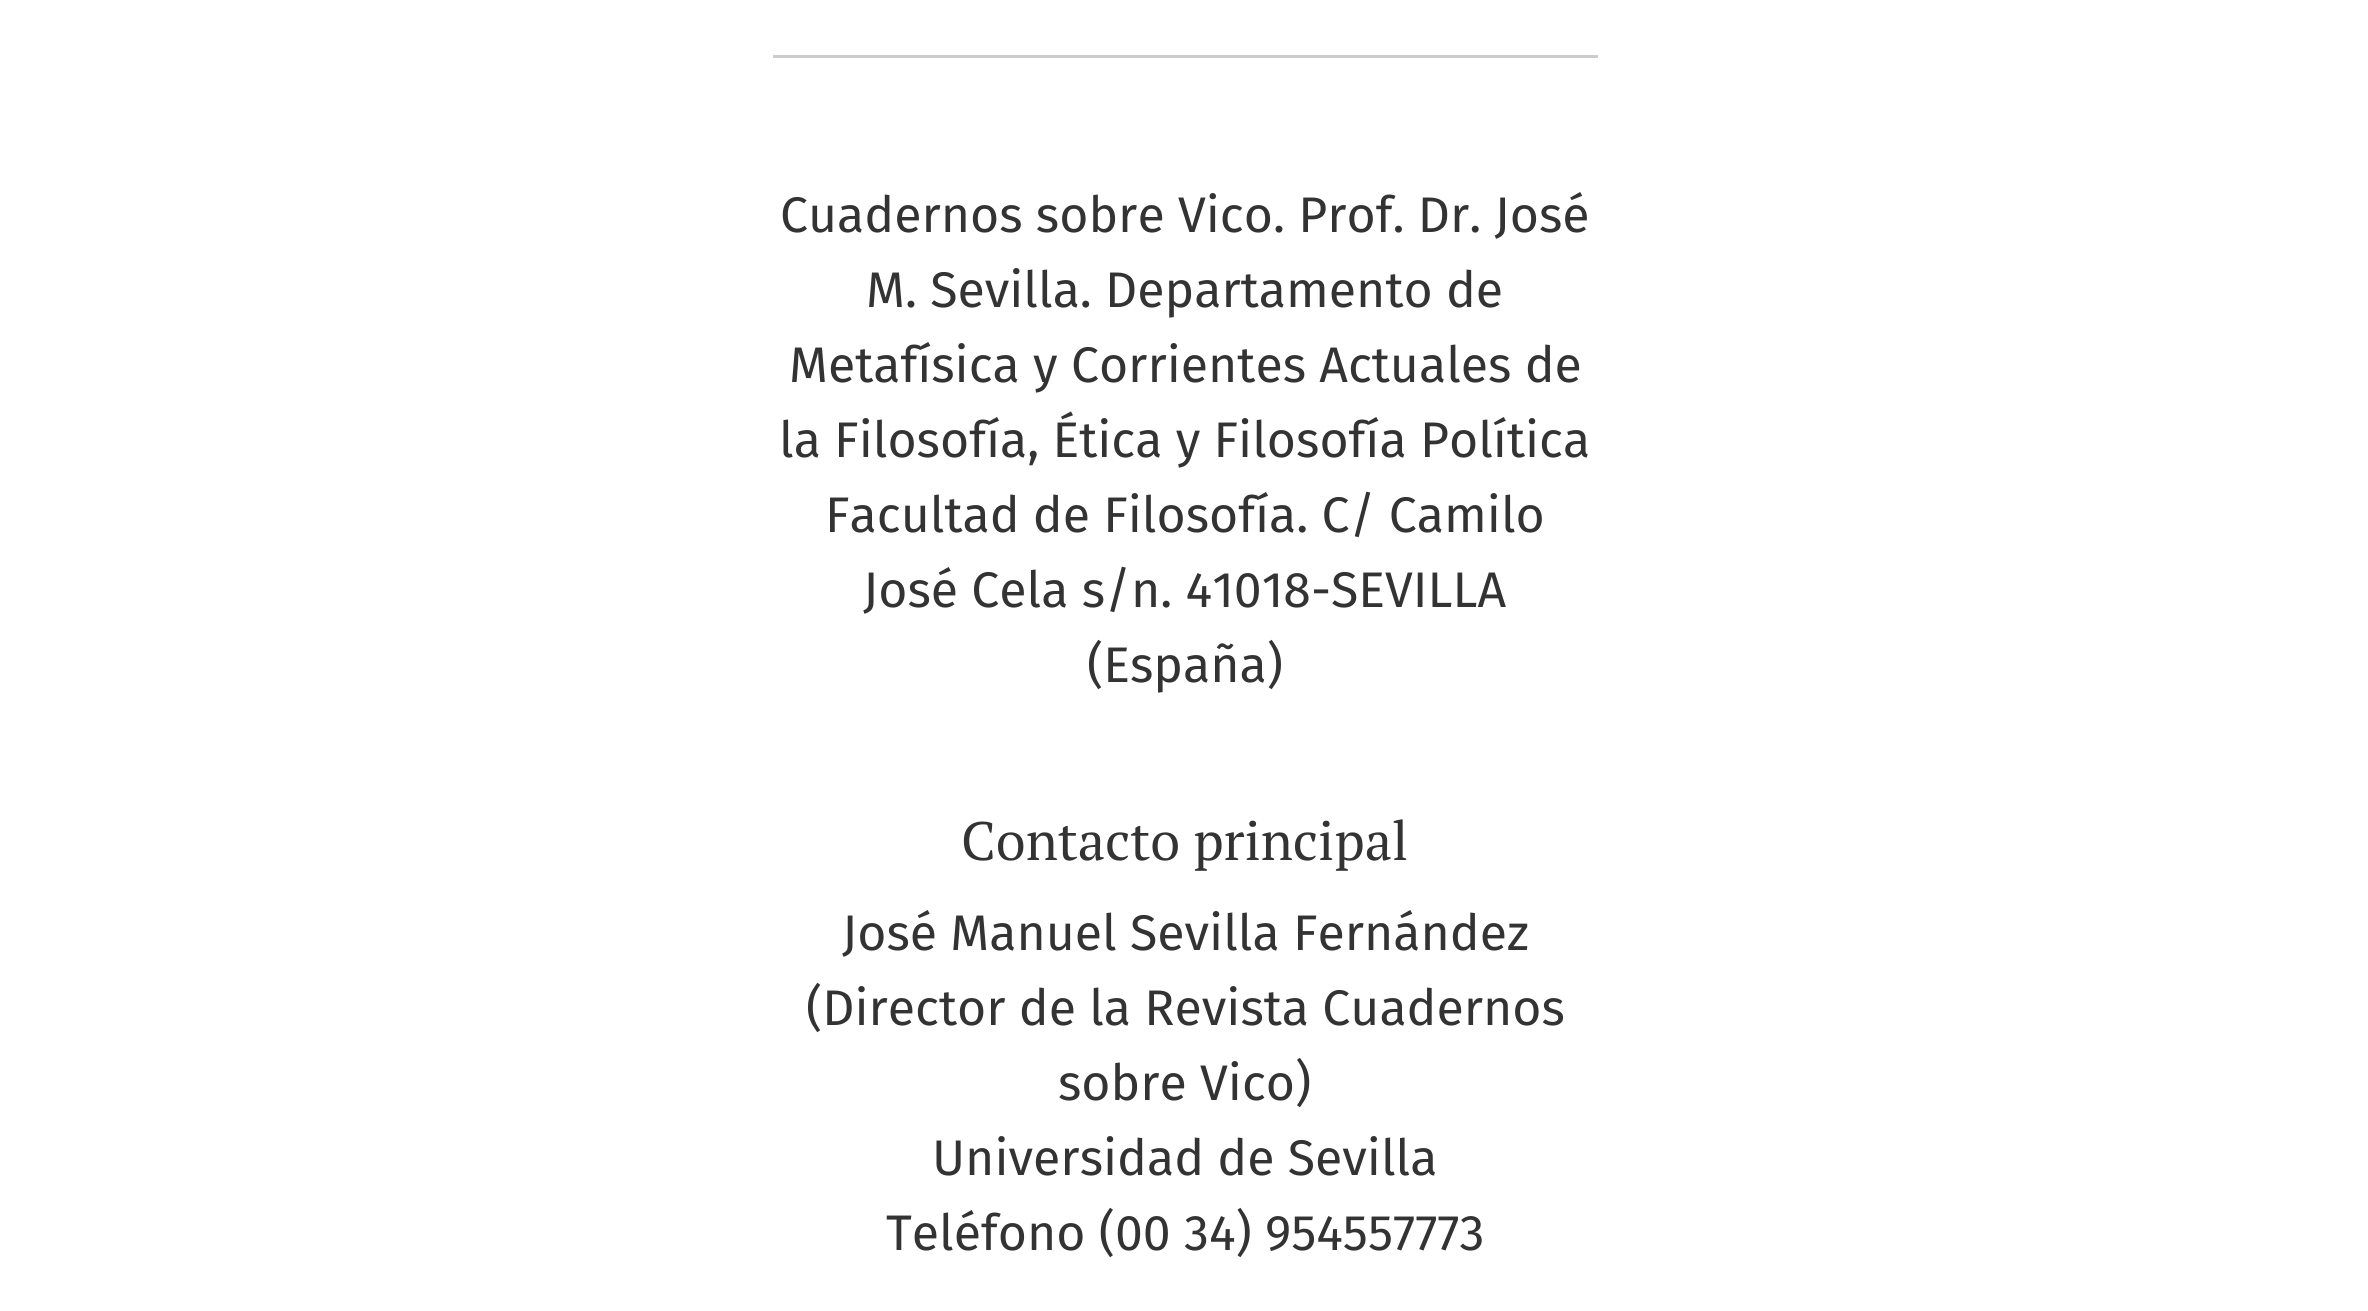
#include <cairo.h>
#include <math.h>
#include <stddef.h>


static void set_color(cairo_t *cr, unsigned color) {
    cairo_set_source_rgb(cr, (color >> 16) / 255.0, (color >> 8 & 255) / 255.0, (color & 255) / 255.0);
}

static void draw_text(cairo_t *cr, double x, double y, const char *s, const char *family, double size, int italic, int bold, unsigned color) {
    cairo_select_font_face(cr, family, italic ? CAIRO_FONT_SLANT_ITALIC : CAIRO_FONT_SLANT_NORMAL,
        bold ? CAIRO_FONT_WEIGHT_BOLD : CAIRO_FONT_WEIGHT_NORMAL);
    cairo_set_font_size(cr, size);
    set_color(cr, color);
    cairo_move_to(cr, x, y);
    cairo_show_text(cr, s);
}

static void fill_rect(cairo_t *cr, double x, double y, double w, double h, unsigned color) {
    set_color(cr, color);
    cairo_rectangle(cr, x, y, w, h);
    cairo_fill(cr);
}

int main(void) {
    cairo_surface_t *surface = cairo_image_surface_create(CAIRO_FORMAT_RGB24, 2368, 1311);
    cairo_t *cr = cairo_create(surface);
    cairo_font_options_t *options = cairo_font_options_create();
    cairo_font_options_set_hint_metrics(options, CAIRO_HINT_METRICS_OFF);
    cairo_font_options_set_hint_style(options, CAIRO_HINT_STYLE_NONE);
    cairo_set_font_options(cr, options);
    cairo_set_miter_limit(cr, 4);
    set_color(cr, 0xFFFFFF);
    cairo_paint(cr);
    fill_rect(cr, 773, 55, 825, 3, 0xCCCCCC);
    draw_text(cr, 780, 232, "Cuadernos sobre Vico. Prof. Dr. José", "Fira Sans", 50, 0, 0, 0x333333);
    draw_text(cr, 866, 307, "M. Sevilla. Departamento de", "Fira Sans", 50, 0, 0, 0x333333);
    draw_text(cr, 789, 382, "Metafísica y Corrientes Actuales de", "Fira Sans", 50, 0, 0, 0x333333);
    draw_text(cr, 779, 457, "la Filosofía, Ética y Filosofía Política", "Fira Sans", 50, 0, 0, 0x333333);
    draw_text(cr, 825, 532, "Facultad de Filosofía. C/ Camilo", "Fira Sans", 50, 0, 0, 0x333333);
    draw_text(cr, 863, 607, "José Cela s/n. 41018-SEVILLA", "Fira Sans", 50, 0, 0, 0x333333);
    draw_text(cr, 1087, 682, "(España)", "Fira Sans", 50, 0, 0, 0x333333);
    draw_text(cr, 961, 860, "Contacto principal", "PT Serif", 54, 0, 0, 0x333333);
    draw_text(cr, 842, 950, "José Manuel Sevilla Fernández", "Fira Sans", 50, 0, 0, 0x333333);
    draw_text(cr, 806, 1025, "(Director de la Revista Cuadernos", "Fira Sans", 50, 0, 0, 0x333333);
    draw_text(cr, 1058, 1100, "sobre Vico)", "Fira Sans", 50, 0, 0, 0x333333);
    draw_text(cr, 932, 1175, "Universidad de Sevilla", "Fira Sans", 50, 0, 0, 0x333333);
    draw_text(cr, 886, 1250, "Teléfono (00 34) 954557773", "Fira Sans", 50, 0, 0, 0x333333);
    cairo_surface_write_to_png(surface, "output.png");
    cairo_font_options_destroy(options);
    cairo_destroy(cr);
    cairo_surface_destroy(surface);
    return 0;
}
